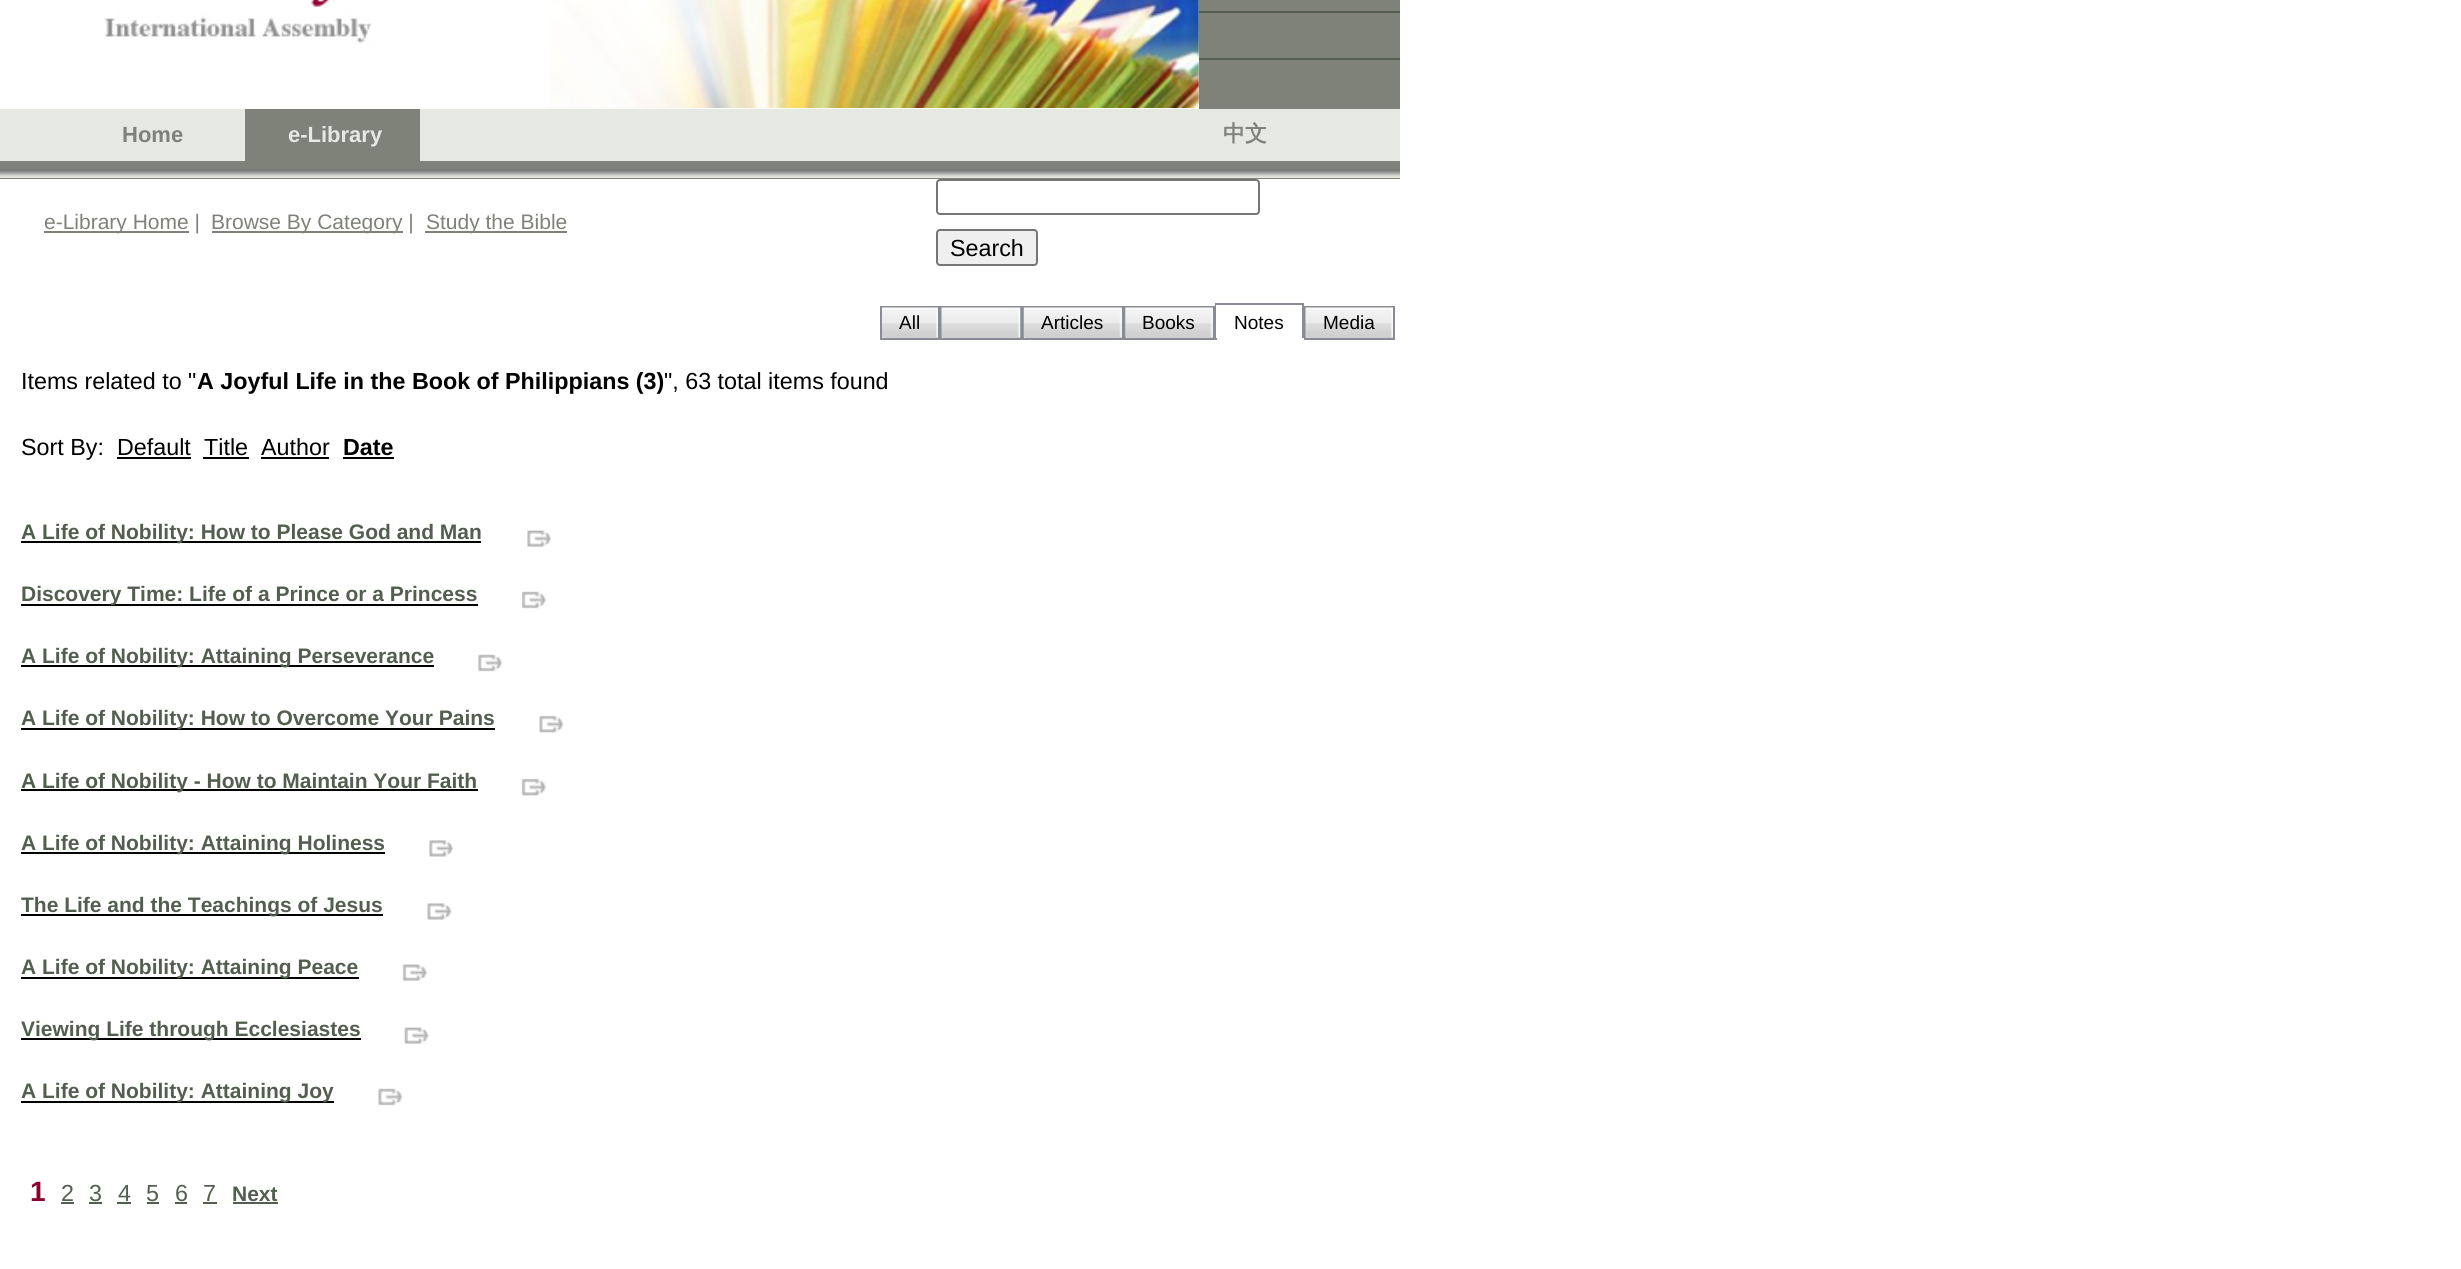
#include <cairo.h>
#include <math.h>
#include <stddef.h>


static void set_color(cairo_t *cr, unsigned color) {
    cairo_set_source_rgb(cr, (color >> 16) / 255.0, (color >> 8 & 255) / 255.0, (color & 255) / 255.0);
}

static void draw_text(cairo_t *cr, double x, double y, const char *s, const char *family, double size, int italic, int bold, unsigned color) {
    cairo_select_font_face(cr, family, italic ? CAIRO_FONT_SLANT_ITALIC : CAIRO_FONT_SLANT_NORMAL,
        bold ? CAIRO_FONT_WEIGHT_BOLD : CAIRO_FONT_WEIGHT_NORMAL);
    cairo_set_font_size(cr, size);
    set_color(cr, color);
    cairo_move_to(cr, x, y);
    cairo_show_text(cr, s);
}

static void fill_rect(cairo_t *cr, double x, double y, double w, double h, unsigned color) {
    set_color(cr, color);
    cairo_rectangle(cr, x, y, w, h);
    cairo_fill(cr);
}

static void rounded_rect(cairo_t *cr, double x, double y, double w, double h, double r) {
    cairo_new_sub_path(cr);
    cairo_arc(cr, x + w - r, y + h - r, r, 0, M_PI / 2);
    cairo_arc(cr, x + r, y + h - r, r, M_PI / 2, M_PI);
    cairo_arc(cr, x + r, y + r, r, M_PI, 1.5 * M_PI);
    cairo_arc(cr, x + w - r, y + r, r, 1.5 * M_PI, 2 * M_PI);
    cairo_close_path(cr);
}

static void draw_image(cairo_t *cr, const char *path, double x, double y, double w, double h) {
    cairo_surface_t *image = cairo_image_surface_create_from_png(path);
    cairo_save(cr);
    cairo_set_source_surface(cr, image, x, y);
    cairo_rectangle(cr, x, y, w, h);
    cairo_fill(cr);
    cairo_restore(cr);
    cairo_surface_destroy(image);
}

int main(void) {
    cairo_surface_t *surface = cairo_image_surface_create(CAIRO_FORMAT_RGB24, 2461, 1269);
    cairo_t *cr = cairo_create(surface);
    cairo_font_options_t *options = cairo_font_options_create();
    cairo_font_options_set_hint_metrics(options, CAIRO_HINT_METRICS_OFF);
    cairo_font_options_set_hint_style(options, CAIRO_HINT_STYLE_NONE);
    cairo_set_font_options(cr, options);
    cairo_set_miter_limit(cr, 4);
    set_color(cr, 0xFFFFFF);
    cairo_paint(cr);
    draw_image(cr, "assets/img1.png", 104, 0, 1095, 108);
    fill_rect(cr, 1199, 0, 201, 109, 0x7E8279);
    fill_rect(cr, 1199, 11, 201, 2, 0x525F4F);
    fill_rect(cr, 1199, 58, 201, 2, 0x525F4F);
    fill_rect(cr, 0, 109, 1400, 52, 0xE6E9E2);
    draw_text(cr, 122, 142, "Home", "Liberation Sans", 22, 0, 1, 0x7E8279);
    fill_rect(cr, 245, 109, 175, 52, 0x7E8279);
    draw_text(cr, 288, 142, "e-Library", "Liberation Sans", 22, 0, 1, 0xE6E9E2);
    draw_text(cr, 1223, 141, "中文", "WenQuanYi Zen Hei", 22, 0, 1, 0x7E8279);
    fill_rect(cr, 0, 161, 1400, 18, 0x7E8279);
    draw_image(cr, "assets/img2.png", 0, 169, 1400, 9);
    fill_rect(cr, 44, 231, 145, 2, 0x7E8279);
    draw_text(cr, 44, 229, "e-Library Home |", "Liberation Sans", 21, 0, 0, 0x7E8279);
    fill_rect(cr, 212, 231, 191, 2, 0x7E8279);
    draw_text(cr, 211, 229, "Browse By Category |", "Liberation Sans", 21, 0, 0, 0x7E8279);
    fill_rect(cr, 425, 231, 142, 2, 0x7E8279);
    draw_text(cr, 426, 229, "Study the Bible", "Liberation Sans", 21, 0, 0, 0x7E8279);
    rounded_rect(cr, 937, 180, 322, 34, 3);
    set_color(cr, 0x767676);
    cairo_stroke(cr);
    set_color(cr, 0xEFEFEF);
    rounded_rect(cr, 937, 230, 100, 35, 3);
    cairo_fill_preserve(cr);
    set_color(cr, 0x767676);
    cairo_stroke(cr);
    draw_text(cr, 950, 256, "Search", "Liberation Sans", 23.3, 0, 0, 0x000000);
    draw_image(cr, "assets/img3.png", 882, 337, 56, 1);
    cairo_rectangle(cr, 881, 307, 58, 32);
    set_color(cr, 0x898C95);
    cairo_stroke(cr);
    draw_image(cr, "assets/img4.png", 882, 307, 56, 31);
    draw_text(cr, 899, 329, "All", "Liberation Sans", 19, 0, 0, 0x000000);
    draw_image(cr, "assets/img5.png", 942, 337, 78, 1);
    cairo_rectangle(cr, 941, 307, 80, 32);
    set_color(cr, 0x898C95);
    cairo_stroke(cr);
    draw_image(cr, "assets/img6.png", 941, 307, 80, 31);
    draw_image(cr, "assets/img7.png", 1024, 309, 98, 29);
    cairo_rectangle(cr, 1023, 307, 100, 32);
    cairo_stroke(cr);
    draw_image(cr, "assets/img8.png", 1023, 307, 99, 31);
    draw_text(cr, 1041, 329, "Articles", "Liberation Sans", 19, 0, 0, 0x000000);
    draw_image(cr, "assets/img9.png", 1126, 309, 87, 29);
    cairo_rectangle(cr, 1125, 307, 89, 32);
    set_color(cr, 0x898C95);
    cairo_stroke(cr);
    draw_image(cr, "assets/img10.png", 1125, 307, 88, 31);
    draw_text(cr, 1142, 329, "Books", "Liberation Sans", 19, 0, 0, 0x000000);
    fill_rect(cr, 1215, 303, 89, 2, 0x898C95);
    fill_rect(cr, 1302, 303, 2, 37, 0x898C95);
    fill_rect(cr, 1302, 338, 2, 2, 0xFFFFFF);
    fill_rect(cr, 1215, 303, 2, 37, 0x898C95);
    fill_rect(cr, 1216, 305, 1, 33, 0xFFFFFF);
    draw_text(cr, 1234, 329, "Notes", "Liberation Sans", 19, 0, 0, 0x000000);
    draw_image(cr, "assets/img11.png", 1306, 337, 87, 1);
    cairo_rectangle(cr, 1305, 307, 89, 32);
    set_color(cr, 0x898C95);
    cairo_stroke(cr);
    draw_image(cr, "assets/img12.png", 1305, 307, 88, 31);
    draw_text(cr, 1323, 329, "Media", "Liberation Sans", 19, 0, 0, 0x000000);
    draw_text(cr, 21, 389, "Items related to \"", "Liberation Sans", 23.3, 0, 0, 0x000000);
    draw_text(cr, 197, 389, "A Joyful Life in the Book of Philippians (3)", "Liberation Sans", 23.3, 0, 1, 0x000000);
    draw_text(cr, 664, 389, "\", 63 total items found", "Liberation Sans", 23.3, 0, 0, 0x000000);
    draw_text(cr, 21, 455, "Sort By:", "Liberation Sans", 23.3, 0, 0, 0x000000);
    draw_text(cr, 117, 455, "Default", "Liberation Sans", 23.3, 0, 0, 0x000000);
    fill_rect(cr, 117, 457, 74, 2, 0x000000);
    draw_text(cr, 204, 455, "Title", "Liberation Sans", 23.3, 0, 0, 0x000000);
    fill_rect(cr, 203, 457, 46, 2, 0x000000);
    draw_text(cr, 261, 455, "Author", "Liberation Sans", 23.3, 0, 0, 0x000000);
    fill_rect(cr, 261, 457, 68, 2, 0x000000);
    draw_text(cr, 343, 455, "Date", "Liberation Sans", 23.3, 0, 1, 0x000000);
    fill_rect(cr, 343, 457, 51, 2, 0x000000);
    fill_rect(cr, 21, 541, 460, 2, 0x000000);
    draw_text(cr, 21, 539, "A Life of Nobility: How to Please God and Man", "Liberation Sans", 21, 0, 1, 0x525F4F);
    draw_image(cr, "assets/img13.png", 527, 530, 24, 17);
    fill_rect(cr, 21, 604, 457, 2, 0x000000);
    draw_text(cr, 21, 601, "Discovery Time: Life of a Prince or a Princess", "Liberation Sans", 21, 0, 1, 0x525F4F);
    draw_image(cr, "assets/img14.png", 521, 591, 25, 18);
    fill_rect(cr, 21, 665, 413, 2, 0x000000);
    draw_text(cr, 21, 663, "A Life of Nobility: Attaining Perseverance", "Liberation Sans", 21, 0, 1, 0x525F4F);
    draw_image(cr, "assets/img15.png", 478, 654, 24, 18);
    fill_rect(cr, 21, 728, 474, 2, 0x000000);
    draw_text(cr, 21, 725, "A Life of Nobility: How to Overcome Your Pains", "Liberation Sans", 21, 0, 1, 0x525F4F);
    draw_image(cr, "assets/img16.png", 539, 715, 25, 18);
    fill_rect(cr, 21, 789, 457, 2, 0x000000);
    draw_text(cr, 21, 788, "A Life of Nobility - How to Maintain Your Faith", "Liberation Sans", 21, 0, 1, 0x525F4F);
    draw_image(cr, "assets/img17.png", 521, 778, 25, 18);
    fill_rect(cr, 21, 852, 364, 2, 0x000000);
    draw_text(cr, 21, 850, "A Life of Nobility: Attaining Holiness", "Liberation Sans", 21, 0, 1, 0x525F4F);
    draw_image(cr, "assets/img18.png", 429, 840, 24, 17);
    fill_rect(cr, 21, 914, 362, 2, 0x000000);
    draw_text(cr, 21, 912, "The Life and the Teachings of Jesus", "Liberation Sans", 21, 0, 1, 0x525F4F);
    draw_image(cr, "assets/img19.png", 427, 903, 25, 17);
    fill_rect(cr, 21, 977, 338, 2, 0x000000);
    draw_text(cr, 21, 974, "A Life of Nobility: Attaining Peace", "Liberation Sans", 21, 0, 1, 0x525F4F);
    draw_image(cr, "assets/img20.png", 402, 964, 25, 17);
    fill_rect(cr, 21, 1038, 340, 2, 0x000000);
    draw_text(cr, 21, 1036, "Viewing Life through Ecclesiastes", "Liberation Sans", 21, 0, 1, 0x525F4F);
    draw_image(cr, "assets/img21.png", 404, 1027, 25, 17);
    fill_rect(cr, 21, 1101, 313, 2, 0x000000);
    draw_text(cr, 21, 1098, "A Life of Nobility: Attaining Joy", "Liberation Sans", 21, 0, 1, 0x525F4F);
    draw_image(cr, "assets/img22.png", 378, 1088, 25, 18);
    draw_text(cr, 30, 1201, "1", "Liberation Sans", 28, 0, 1, 0x8C0031);
    draw_text(cr, 61, 1201, "2", "Liberation Sans", 23.3, 0, 0, 0x525F4F);
    fill_rect(cr, 61, 1202, 13, 2, 0x525F4F);
    draw_text(cr, 89, 1201, "3", "Liberation Sans", 23.3, 0, 0, 0x525F4F);
    fill_rect(cr, 89, 1202, 13, 2, 0x525F4F);
    draw_text(cr, 118, 1201, "4", "Liberation Sans", 23.3, 0, 0, 0x525F4F);
    fill_rect(cr, 117, 1202, 14, 2, 0x525F4F);
    draw_text(cr, 146, 1201, "5", "Liberation Sans", 23.3, 0, 0, 0x525F4F);
    fill_rect(cr, 147, 1202, 12, 2, 0x525F4F);
    draw_text(cr, 175, 1201, "6", "Liberation Sans", 23.3, 0, 0, 0x525F4F);
    fill_rect(cr, 175, 1202, 12, 2, 0x525F4F);
    draw_text(cr, 203, 1201, "7", "Liberation Sans", 23.3, 0, 0, 0x525F4F);
    fill_rect(cr, 203, 1202, 14, 2, 0x525F4F);
    draw_text(cr, 232, 1201, "Next", "Liberation Sans", 21, 0, 1, 0x525F4F);
    fill_rect(cr, 233, 1202, 45, 2, 0x525F4F);
    cairo_surface_write_to_png(surface, "output.png");
    cairo_font_options_destroy(options);
    cairo_destroy(cr);
    cairo_surface_destroy(surface);
    return 0;
}
